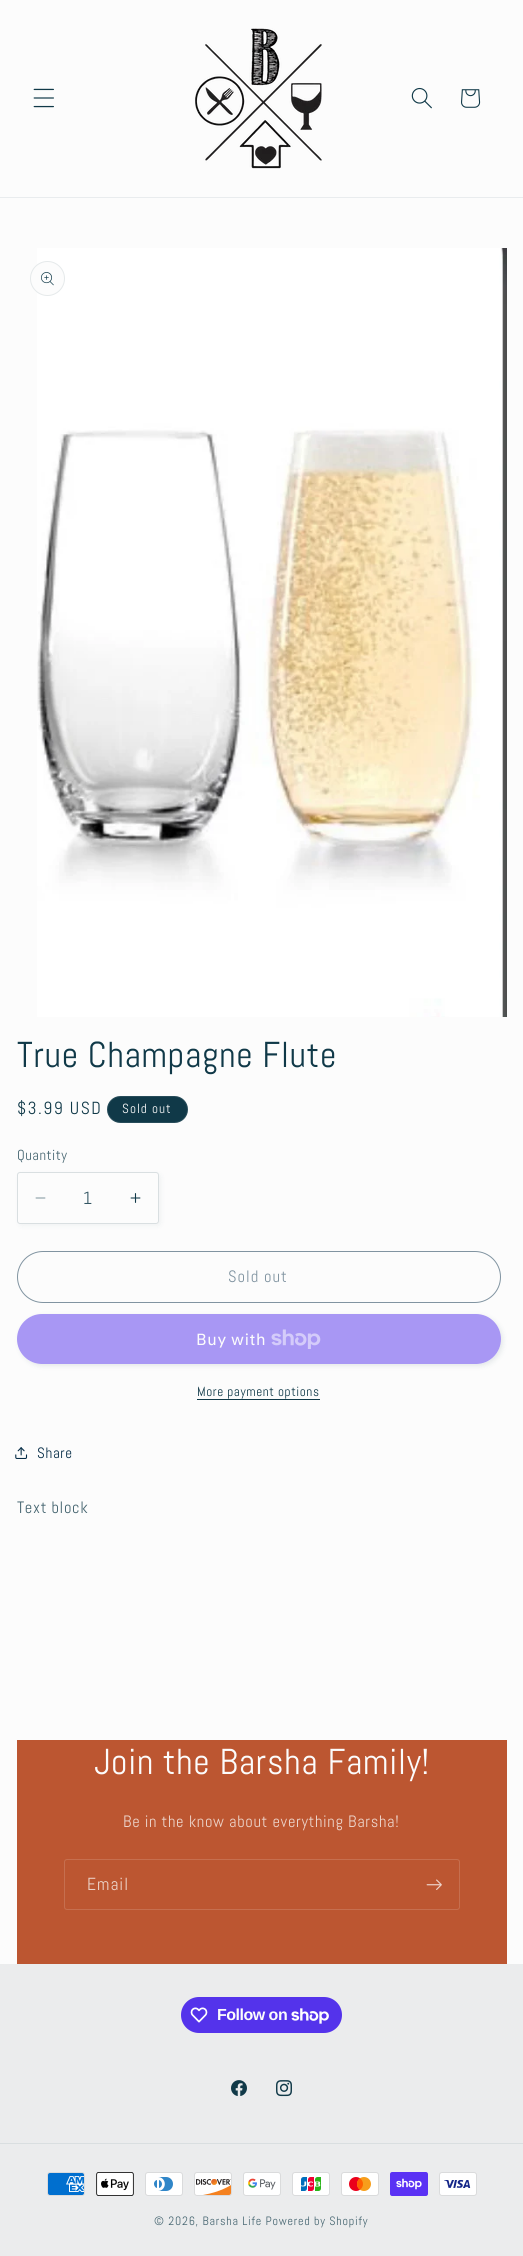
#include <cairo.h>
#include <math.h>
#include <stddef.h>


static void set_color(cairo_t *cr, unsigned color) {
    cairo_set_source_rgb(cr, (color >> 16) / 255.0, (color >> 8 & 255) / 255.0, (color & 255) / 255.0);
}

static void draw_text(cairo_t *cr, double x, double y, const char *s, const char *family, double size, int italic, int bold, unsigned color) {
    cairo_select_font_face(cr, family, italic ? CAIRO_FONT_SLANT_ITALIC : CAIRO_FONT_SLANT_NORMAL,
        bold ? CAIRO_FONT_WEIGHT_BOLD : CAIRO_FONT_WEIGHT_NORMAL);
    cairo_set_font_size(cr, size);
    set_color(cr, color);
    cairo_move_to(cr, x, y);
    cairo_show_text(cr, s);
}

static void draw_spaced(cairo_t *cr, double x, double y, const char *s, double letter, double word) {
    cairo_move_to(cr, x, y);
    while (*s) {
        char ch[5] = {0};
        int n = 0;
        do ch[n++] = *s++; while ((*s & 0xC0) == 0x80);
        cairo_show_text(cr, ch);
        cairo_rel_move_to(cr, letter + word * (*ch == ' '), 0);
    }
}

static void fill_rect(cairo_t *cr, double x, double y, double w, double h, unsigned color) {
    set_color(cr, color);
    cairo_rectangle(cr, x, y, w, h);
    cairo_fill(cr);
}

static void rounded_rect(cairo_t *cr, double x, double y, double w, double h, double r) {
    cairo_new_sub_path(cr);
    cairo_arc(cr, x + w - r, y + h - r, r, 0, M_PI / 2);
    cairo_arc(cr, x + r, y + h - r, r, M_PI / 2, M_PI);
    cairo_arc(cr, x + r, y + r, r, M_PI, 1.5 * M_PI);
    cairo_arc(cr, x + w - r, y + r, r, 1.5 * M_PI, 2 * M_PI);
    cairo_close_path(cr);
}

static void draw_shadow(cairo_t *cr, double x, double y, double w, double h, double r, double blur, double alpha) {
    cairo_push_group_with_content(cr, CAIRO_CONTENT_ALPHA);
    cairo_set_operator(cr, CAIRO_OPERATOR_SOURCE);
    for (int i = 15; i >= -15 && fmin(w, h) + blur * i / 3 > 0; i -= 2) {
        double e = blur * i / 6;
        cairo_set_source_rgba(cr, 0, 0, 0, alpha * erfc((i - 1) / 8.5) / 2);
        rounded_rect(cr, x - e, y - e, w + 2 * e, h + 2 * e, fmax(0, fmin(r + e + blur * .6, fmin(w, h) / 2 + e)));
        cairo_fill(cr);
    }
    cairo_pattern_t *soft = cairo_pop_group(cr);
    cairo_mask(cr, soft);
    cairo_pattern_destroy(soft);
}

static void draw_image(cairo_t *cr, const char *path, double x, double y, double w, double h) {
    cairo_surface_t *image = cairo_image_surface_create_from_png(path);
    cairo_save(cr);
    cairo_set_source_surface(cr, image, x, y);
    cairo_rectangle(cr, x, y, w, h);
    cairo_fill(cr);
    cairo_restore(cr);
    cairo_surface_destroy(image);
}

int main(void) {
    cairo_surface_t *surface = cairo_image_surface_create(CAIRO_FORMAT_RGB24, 523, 2256);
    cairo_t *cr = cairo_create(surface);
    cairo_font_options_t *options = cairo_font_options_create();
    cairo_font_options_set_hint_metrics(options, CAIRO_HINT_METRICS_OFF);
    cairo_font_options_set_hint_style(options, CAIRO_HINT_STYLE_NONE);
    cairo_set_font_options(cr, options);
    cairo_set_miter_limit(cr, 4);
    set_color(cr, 0xFCFCFC);
    cairo_paint(cr);
    fill_rect(cr, 0, 197, 523, 1, 0xE9ECEE);
    draw_image(cr, "assets/img1.png", 33, 88, 21, 20);
    draw_image(cr, "assets/img2.png", 195, 28, 127, 141);
    draw_image(cr, "assets/img3.png", 411, 87, 21, 22);
    draw_image(cr, "assets/img4.png", 461, 89, 20, 19);
    draw_image(cr, "assets/img5.png", 37, 248, 470, 769);
    set_color(cr, 0xFCFCFC);
    cairo_arc(cr, 47.5, 278.5, 17, 0, 2 * M_PI);
    cairo_fill_preserve(cr);
    set_color(cr, 0xE5E9EA);
    cairo_set_line_width(cr, 1);
    cairo_stroke(cr);
    draw_image(cr, "assets/img6.png", 41, 272, 13, 14);
    cairo_select_font_face(cr, "Abel", CAIRO_FONT_SLANT_NORMAL, CAIRO_FONT_WEIGHT_NORMAL);
    cairo_set_font_size(cr, 36);
    set_color(cr, 0x103948);
    draw_spaced(cr, 17, 1067, "True Champagne Flute", 0.75, 0);
    cairo_set_font_size(cr, 17.5);
    draw_spaced(cr, 17, 1114, "$3.99 USD", 1.5, 0);
    rounded_rect(cr, 107, 1096, 81, 27, 13.5);
    cairo_fill(cr);
    rounded_rect(cr, 107.5, 1096.5, 80, 26, 13);
    cairo_set_source_rgba(cr, 0.988, 0.988, 0.988, 0.1);
    cairo_stroke(cr);
    cairo_set_font_size(cr, 13.25);
    set_color(cr, 0xFCFCFC);
    draw_spaced(cr, 122, 1113, "Sold out", 1, 0);
    cairo_set_font_size(cr, 14.5);
    set_color(cr, 0x476671);
    draw_spaced(cr, 17, 1160, "Quantity", 0.5, 0);
    set_color(cr, 0x103948);
    draw_shadow(cr, 19, 1174, 142, 52, 3, 2.5, 0.05);
    set_color(cr, 0xFCFCFC);
    rounded_rect(cr, 17, 1172, 142, 52, 3);
    cairo_fill(cr);
    draw_image(cr, "assets/img7.png", 35, 1197, 11, 2);
    draw_image(cr, "assets/img8.png", 130, 1193, 11, 10);
    rounded_rect(cr, 17.5, 1172.5, 141, 51, 2.5);
    set_color(cr, 0xD9DFE1);
    cairo_stroke(cr);
    draw_text(cr, 83, 1204, "1", "Abel", 17.5, 0, 0, 0x335663);
    rounded_rect(cr, 17.5, 1251.5, 483, 51, 25.5);
    set_color(cr, 0x8194A1);
    cairo_stroke(cr);
    cairo_set_font_size(cr, 16.5);
    draw_spaced(cr, 228, 1282, "Sold out", 1, 0);
    cairo_save(cr);
    cairo_set_fill_rule(cr, CAIRO_FILL_RULE_EVEN_ODD);
    cairo_new_path(cr);
    cairo_move_to(cr, 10, 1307);
    cairo_line_to(cr, 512, 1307);
    cairo_line_to(cr, 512, 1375);
    cairo_line_to(cr, 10, 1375);
    cairo_close_path(cr);
    cairo_move_to(cr, 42, 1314);
    cairo_line_to(cr, 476, 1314);
    cairo_curve_to(cr, 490, 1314, 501, 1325, 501, 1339);
    cairo_curve_to(cr, 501, 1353, 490, 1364, 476, 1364);
    cairo_line_to(cr, 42, 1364);
    cairo_curve_to(cr, 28, 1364, 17, 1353, 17, 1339);
    cairo_curve_to(cr, 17, 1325, 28, 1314, 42, 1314);
    cairo_close_path(cr);
    cairo_clip(cr);
    set_color(cr, 0x103948);
    draw_shadow(cr, 19, 1316, 484, 50, 25, 2.5, 0.1);
    cairo_restore(cr);
    cairo_set_source_rgba(cr, 0.329, 0.2, 0.922, 0.5);
    rounded_rect(cr, 17, 1314, 484, 50, 25);
    cairo_fill(cr);
    cairo_select_font_face(cr, "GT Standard", CAIRO_FONT_SLANT_NORMAL, CAIRO_FONT_WEIGHT_NORMAL);
    cairo_set_font_size(cr, 16);
    set_color(cr, 0xFCFCFC);
    draw_spaced(cr, 196, 1345, "Buy with", 0.65, 0);
    draw_image(cr, "assets/img9.png", 271, 1329, 50, 20);
    cairo_select_font_face(cr, "Abel", CAIRO_FONT_SLANT_NORMAL, CAIRO_FONT_WEIGHT_NORMAL);
    cairo_set_font_size(cr, 13.25);
    set_color(cr, 0x103948);
    draw_spaced(cr, 197, 1396, "More payment options", 0.55, 0);
    fill_rect(cr, 197, 1399, 123, 1, 0x103948);
    draw_image(cr, "assets/img10.png", 15, 1447, 13, 12);
    cairo_set_font_size(cr, 15);
    set_color(cr, 0x052C46);
    draw_spaced(cr, 37, 1458, "Share", 0.65, 0);
    cairo_set_font_size(cr, 16.5);
    set_color(cr, 0x476671);
    draw_spaced(cr, 17, 1513, "Text block", 0.65, 0);
    fill_rect(cr, 17, 1740, 490, 224, 0xBC5631);
    cairo_set_font_size(cr, 36);
    set_color(cr, 0xFCFCFC);
    draw_spaced(cr, 94, 1774, "Join the Barsha Family!", 0.75, 0);
    cairo_set_font_size(cr, 16.5);
    set_color(cr, 0xECD3C9);
    draw_spaced(cr, 123, 1827, "Be in the know about everything Barsha!", 0.65, 0);
    rounded_rect(cr, 64.5, 1859.5, 395, 50, 2.5);
    set_color(cr, 0xC66F4F);
    cairo_stroke(cr);
    cairo_set_font_size(cr, 17.5);
    set_color(cr, 0xECD3C9);
    draw_spaced(cr, 87, 1890, "Email", 1, 0);
    draw_image(cr, "assets/img11.png", 426, 1879, 16, 11);
    fill_rect(cr, 0, 1964, 523, 292, 0xEBECED);
    set_color(cr, 0x5433EB);
    rounded_rect(cr, 181, 1997, 161, 36, 18);
    cairo_fill(cr);
    draw_image(cr, "assets/img12.png", 190, 2007, 18, 16);
    cairo_select_font_face(cr, "Liberation Sans", CAIRO_FONT_SLANT_NORMAL, CAIRO_FONT_WEIGHT_BOLD);
    cairo_set_font_size(cr, 16);
    set_color(cr, 0xFCFCFC);
    draw_spaced(cr, 217, 2020, "Follow on", -0.5, 0);
    draw_image(cr, "assets/img13.png", 291, 2008, 38, 16);
    draw_image(cr, "assets/img14.png", 231, 2080, 16, 16);
    draw_image(cr, "assets/img15.png", 276, 2080, 16, 17);
    fill_rect(cr, 0, 2143, 523, 1, 0xD9DEE0);
    draw_image(cr, "assets/img16.png", 47, 2172, 38, 24);
    draw_image(cr, "assets/img17.png", 96, 2172, 38, 24);
    draw_image(cr, "assets/img18.png", 145, 2172, 38, 24);
    draw_image(cr, "assets/img19.png", 194, 2172, 38, 24);
    draw_image(cr, "assets/img20.png", 243, 2172, 38, 24);
    draw_image(cr, "assets/img21.png", 292, 2172, 38, 24);
    draw_image(cr, "assets/img22.png", 341, 2172, 38, 24);
    draw_image(cr, "assets/img23.png", 390, 2172, 38, 24);
    draw_image(cr, "assets/img24.png", 439, 2172, 38, 24);
    cairo_select_font_face(cr, "Abel", CAIRO_FONT_SLANT_NORMAL, CAIRO_FONT_WEIGHT_NORMAL);
    cairo_set_font_size(cr, 12.1);
    set_color(cr, 0x476671);
    draw_spaced(cr, 154, 2225, "© 2026, Barsha Life Powered by Shopify", 0.75, 0);
    cairo_surface_write_to_png(surface, "output.png");
    cairo_font_options_destroy(options);
    cairo_destroy(cr);
    cairo_surface_destroy(surface);
    return 0;
}
